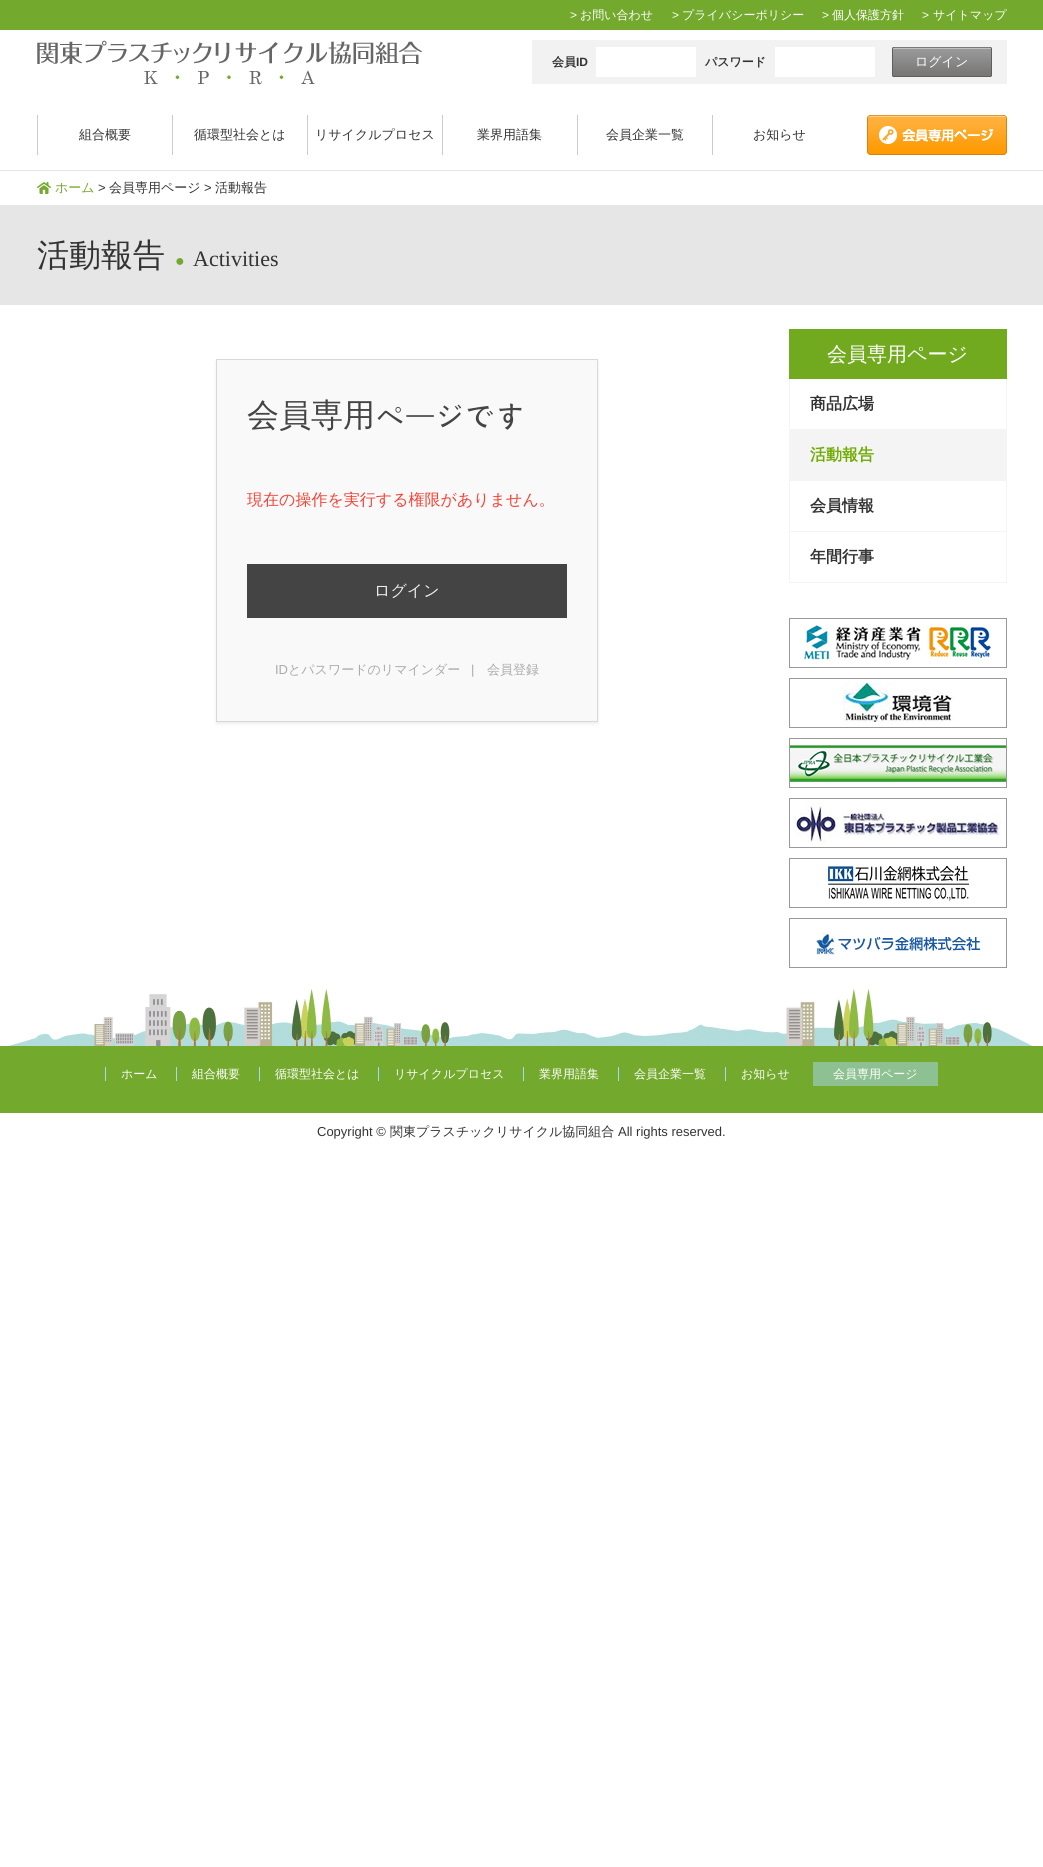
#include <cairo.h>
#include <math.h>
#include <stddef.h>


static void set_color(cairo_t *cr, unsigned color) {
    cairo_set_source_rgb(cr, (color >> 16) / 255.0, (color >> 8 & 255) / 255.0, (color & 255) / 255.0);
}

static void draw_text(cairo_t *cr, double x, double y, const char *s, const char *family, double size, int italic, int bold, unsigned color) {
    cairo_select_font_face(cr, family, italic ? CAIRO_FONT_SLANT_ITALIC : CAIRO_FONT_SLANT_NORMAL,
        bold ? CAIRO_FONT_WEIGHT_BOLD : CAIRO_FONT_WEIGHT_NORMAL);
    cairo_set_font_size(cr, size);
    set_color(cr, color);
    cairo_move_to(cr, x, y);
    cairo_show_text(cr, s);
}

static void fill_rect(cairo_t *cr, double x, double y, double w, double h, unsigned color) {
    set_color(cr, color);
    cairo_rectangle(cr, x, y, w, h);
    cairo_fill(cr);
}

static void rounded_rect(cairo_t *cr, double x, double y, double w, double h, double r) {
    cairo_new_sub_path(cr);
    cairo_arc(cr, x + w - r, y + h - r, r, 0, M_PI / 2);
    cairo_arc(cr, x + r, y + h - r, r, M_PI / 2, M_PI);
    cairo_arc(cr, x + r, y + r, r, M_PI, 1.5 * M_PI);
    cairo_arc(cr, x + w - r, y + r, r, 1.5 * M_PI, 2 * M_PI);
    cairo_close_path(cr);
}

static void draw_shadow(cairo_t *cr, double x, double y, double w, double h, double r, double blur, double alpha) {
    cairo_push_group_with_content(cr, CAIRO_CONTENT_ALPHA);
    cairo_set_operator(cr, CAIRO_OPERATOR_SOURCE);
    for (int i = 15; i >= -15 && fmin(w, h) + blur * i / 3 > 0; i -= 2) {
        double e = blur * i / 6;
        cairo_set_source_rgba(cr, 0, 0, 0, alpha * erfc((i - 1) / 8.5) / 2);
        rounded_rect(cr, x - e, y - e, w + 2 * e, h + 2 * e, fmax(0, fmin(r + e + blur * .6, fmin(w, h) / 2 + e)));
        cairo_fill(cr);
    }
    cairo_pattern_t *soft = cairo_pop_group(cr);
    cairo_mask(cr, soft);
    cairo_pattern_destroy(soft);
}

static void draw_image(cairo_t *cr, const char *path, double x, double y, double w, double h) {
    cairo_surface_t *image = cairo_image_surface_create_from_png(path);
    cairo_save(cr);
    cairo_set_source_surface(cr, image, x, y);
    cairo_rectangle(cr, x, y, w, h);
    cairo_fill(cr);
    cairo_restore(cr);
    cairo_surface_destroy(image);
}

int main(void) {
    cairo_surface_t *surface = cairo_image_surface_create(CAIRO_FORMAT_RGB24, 1043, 1867);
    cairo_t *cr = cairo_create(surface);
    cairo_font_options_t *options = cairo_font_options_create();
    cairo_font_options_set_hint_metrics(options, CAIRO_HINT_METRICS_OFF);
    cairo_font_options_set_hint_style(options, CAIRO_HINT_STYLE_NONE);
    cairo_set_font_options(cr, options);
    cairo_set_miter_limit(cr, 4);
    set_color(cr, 0xFFFFFF);
    cairo_paint(cr);
    fill_rect(cr, 0, 0, 1043, 30, 0x73A92D);
    draw_text(cr, 570, 19, ">", "Liberation Sans", 12, 0, 0, 0xFFFFFF);
    draw_text(cr, 580, 19, "お問い合わせ", "WenQuanYi Zen Hei Medium", 12, 0, 0, 0xFFFFFF);
    draw_text(cr, 672, 19, ">", "Liberation Sans", 12, 0, 0, 0xFFFFFF);
    draw_text(cr, 682, 19, "プライバシーポリシー", "WenQuanYi Zen Hei Medium", 12, 0, 0, 0xFFFFFF);
    draw_text(cr, 822, 19, ">", "Liberation Sans", 12, 0, 0, 0xFFFFFF);
    draw_text(cr, 832, 19, "個人保護方針", "WenQuanYi Zen Hei Medium", 12, 0, 0, 0xFFFFFF);
    draw_text(cr, 922, 19, ">", "Liberation Sans", 12, 0, 0, 0xFFFFFF);
    draw_text(cr, 933, 19, "サイトマップ", "WenQuanYi Zen Hei Medium", 12, 0, 0, 0xFFFFFF);
    draw_image(cr, "assets/img1.png", 37, 40, 385, 45);
    fill_rect(cr, 532, 40, 475, 44, 0xF2F2F2);
    draw_text(cr, 552, 66, "会員", "WenQuanYi Zen Hei", 12, 0, 1, 0x333333);
    draw_text(cr, 576, 66, "ID", "Liberation Sans", 12, 0, 1, 0x333333);
    fill_rect(cr, 596, 47, 100, 30, 0xFFFFFF);
    draw_text(cr, 705, 66, "パスワード", "WenQuanYi Zen Hei", 12, 0, 1, 0x333333);
    fill_rect(cr, 775, 47, 100, 30, 0xFFFFFF);
    draw_image(cr, "assets/img2.png", 892, 47, 100, 30);
    draw_text(cr, 915, 66, "ログイン", "WenQuanYi Zen Hei Medium", 13, 0, 0, 0xFFFFFF);
    fill_rect(cr, 37, 115, 1, 40, 0xCBCBCB);
    draw_text(cr, 79, 139, "組合概要", "WenQuanYi Zen Hei Medium", 13, 0, 0, 0x333333);
    fill_rect(cr, 172, 115, 1, 40, 0xCBCBCB);
    draw_text(cr, 194, 139, "循環型社会とは", "WenQuanYi Zen Hei Medium", 13, 0, 0, 0x333333);
    fill_rect(cr, 307, 115, 1, 40, 0xCBCBCB);
    draw_text(cr, 315, 139, "リサイクルプロセス", "WenQuanYi Zen Hei Medium", 13, 0, 0, 0x333333);
    fill_rect(cr, 442, 115, 1, 40, 0xCBCBCB);
    draw_text(cr, 477, 139, "業界用語集", "WenQuanYi Zen Hei Medium", 13, 0, 0, 0x333333);
    fill_rect(cr, 577, 115, 1, 40, 0xCBCBCB);
    draw_text(cr, 606, 139, "会員企業一覧", "WenQuanYi Zen Hei Medium", 13, 0, 0, 0x333333);
    fill_rect(cr, 712, 115, 1, 40, 0xCBCBCB);
    draw_text(cr, 753, 139, "お知らせ", "WenQuanYi Zen Hei Medium", 13, 0, 0, 0x333333);
    draw_image(cr, "assets/img3.png", 867, 115, 140, 40);
    fill_rect(cr, 0, 170, 1043, 1, 0xE7E7E7);
    draw_image(cr, "assets/img4.png", 37, 182, 14, 12);
    draw_text(cr, 55, 192, "ホーム", "WenQuanYi Zen Hei Medium", 13, 0, 0, 0x76A82F);
    draw_text(cr, 98, 192, ">", "Liberation Sans", 13, 0, 0, 0x333333);
    draw_text(cr, 109, 192, "会員専用ページ", "WenQuanYi Zen Hei Medium", 13, 0, 0, 0x333333);
    draw_text(cr, 204, 192, ">", "Liberation Sans", 13, 0, 0, 0x333333);
    draw_text(cr, 215, 192, "活動報告", "WenQuanYi Zen Hei Medium", 13, 0, 0, 0x333333);
    fill_rect(cr, 0, 205, 1043, 100, 0xE6E6E6);
    draw_text(cr, 37, 266, "活動報告", "WenQuanYi Zen Hei Medium", 32, 0, 0, 0x333333);
    draw_text(cr, 175, 266, "●", "Liberation Sans", 16, 0, 0, 0x76A82F);
    draw_text(cr, 193, 266, "Activities", "Liberation Serif", 22, 0, 0, 0x333333);
    set_color(cr, 0xEEEEEE);
    draw_shadow(cr, 216, 361, 382, 363, 0, 1.5, 1);
    fill_rect(cr, 217, 361, 380, 360, 0xF9F9F9);
    cairo_rectangle(cr, 216.5, 359.5, 381, 362);
    set_color(cr, 0xD8D8D8);
    cairo_set_line_width(cr, 1);
    cairo_stroke(cr);
    draw_text(cr, 247, 426, "会員専用", "WenQuanYi Zen Hei Medium", 32, 0, 0, 0x444444);
    draw_text(cr, 375, 426, "ページです", "NanumGothic", 32, 0, 0, 0x444444);
    draw_text(cr, 247, 505, "現在の操作を実行する権限がありません。", "WenQuanYi Zen Hei Medium", 16, 0, 0, 0xF44336);
    fill_rect(cr, 247, 564, 320, 54, 0x444444);
    draw_text(cr, 374, 596, "ログイン", "WenQuanYi Zen Hei Medium", 16, 0, 0, 0xEEEEEE);
    draw_text(cr, 275, 674, "ID", "Liberation Sans", 13, 0, 0, 0xAAAAAA);
    draw_text(cr, 288, 674, "とパスワードのリマインダー", "WenQuanYi Zen Hei Medium", 13, 0, 0, 0xAAAAAA);
    draw_text(cr, 471, 674, "|", "Liberation Sans", 13, 0, 0, 0xAAAAAA);
    draw_text(cr, 487, 674, "会員登録", "WenQuanYi Zen Hei Medium", 13, 0, 0, 0xAAAAAA);
    fill_rect(cr, 789, 329, 218, 50, 0x71AA1F);
    draw_text(cr, 827, 361, "会員専用ページ", "WenQuanYi Zen Hei Medium", 20, 0, 0, 0xFFFFFF);
    fill_rect(cr, 1006, 379, 1, 204, 0xF4F4F4);
    fill_rect(cr, 789, 379, 1, 204, 0xF4F4F4);
    fill_rect(cr, 790, 429, 216, 1, 0xF4F4F4);
    draw_text(cr, 810, 409, "商品広場", "WenQuanYi Zen Hei", 16, 0, 1, 0x333333);
    fill_rect(cr, 790, 430, 216, 51, 0xF4F4F4);
    draw_text(cr, 810, 460, "活動報告", "WenQuanYi Zen Hei", 16, 0, 1, 0x6FAC02);
    fill_rect(cr, 790, 531, 216, 1, 0xF4F4F4);
    draw_text(cr, 810, 511, "会員情報", "WenQuanYi Zen Hei", 16, 0, 1, 0x333333);
    fill_rect(cr, 790, 582, 216, 1, 0xF4F4F4);
    draw_text(cr, 810, 562, "年間行事", "WenQuanYi Zen Hei", 16, 0, 1, 0x333333);
    draw_image(cr, "assets/img5.png", 789, 618, 218, 50);
    draw_image(cr, "assets/img6.png", 789, 678, 218, 50);
    draw_image(cr, "assets/img7.png", 789, 738, 218, 50);
    draw_image(cr, "assets/img8.png", 789, 798, 218, 50);
    draw_image(cr, "assets/img9.png", 789, 858, 218, 50);
    draw_image(cr, "assets/img10.png", 789, 918, 218, 50);
    draw_image(cr, "assets/img11.png", 8, 989, 1025, 57);
    fill_rect(cr, 0, 1046, 1043, 67, 0x73A92D);
    draw_text(cr, 121, 1078, "ホーム", "WenQuanYi Zen Hei Medium", 12, 0, 0, 0xFFFFFF);
    fill_rect(cr, 105, 1067, 1, 14, 0xA7D8F4);
    draw_text(cr, 192, 1078, "組合概要", "WenQuanYi Zen Hei Medium", 12, 0, 0, 0xFFFFFF);
    fill_rect(cr, 176, 1067, 1, 14, 0xA7D8F4);
    draw_text(cr, 275, 1078, "循環型社会とは", "WenQuanYi Zen Hei Medium", 12, 0, 0, 0xFFFFFF);
    fill_rect(cr, 259, 1067, 1, 14, 0xA7D8F4);
    fill_rect(cr, 378, 1067, 1, 14, 0xA7D8F4);
    draw_text(cr, 394, 1078, "リサイクルプロセス", "WenQuanYi Zen Hei Medium", 12, 0, 0, 0xFFFFFF);
    draw_text(cr, 539, 1078, "業界用語集", "WenQuanYi Zen Hei Medium", 12, 0, 0, 0xFFFFFF);
    fill_rect(cr, 523, 1067, 1, 14, 0xA7D8F4);
    draw_text(cr, 634, 1078, "会員企業一覧", "WenQuanYi Zen Hei Medium", 12, 0, 0, 0xFFFFFF);
    fill_rect(cr, 618, 1067, 1, 14, 0xA7D8F4);
    draw_text(cr, 741, 1078, "お知らせ", "WenQuanYi Zen Hei Medium", 12, 0, 0, 0xFFFFFF);
    fill_rect(cr, 725, 1067, 1, 14, 0xA7D8F4);
    fill_rect(cr, 813, 1062, 125, 24, 0x8DC191);
    draw_text(cr, 833, 1078, "会員専用ページ", "WenQuanYi Zen Hei Medium", 12, 0, 0, 0xFFFFFF);
    draw_text(cr, 317, 1136, "Copyright ©", "Liberation Sans", 13, 0, 0, 0x333333);
    draw_text(cr, 390, 1136, "関東プラスチックリサイクル協同組合", "WenQuanYi Zen Hei Medium", 13, 0, 0, 0x333333);
    draw_text(cr, 618, 1136, "All rights reserved.", "Liberation Sans", 13, 0, 0, 0x333333);
    cairo_surface_write_to_png(surface, "output.png");
    cairo_font_options_destroy(options);
    cairo_destroy(cr);
    cairo_surface_destroy(surface);
    return 0;
}
